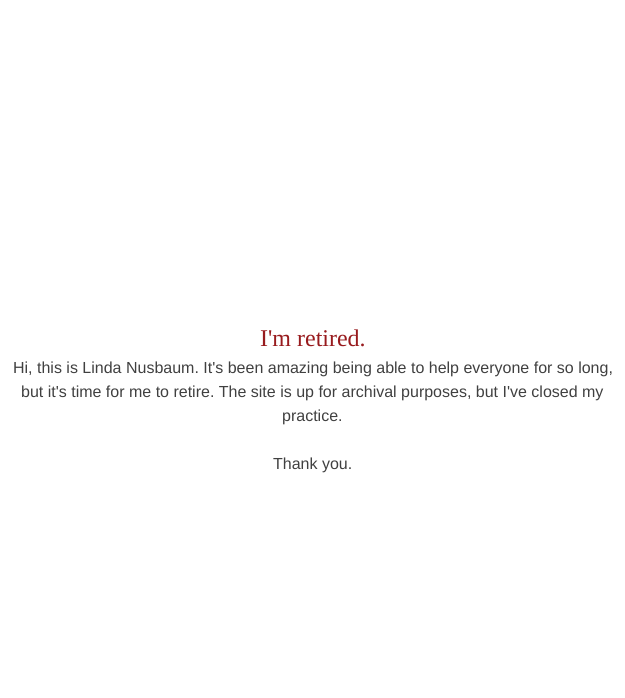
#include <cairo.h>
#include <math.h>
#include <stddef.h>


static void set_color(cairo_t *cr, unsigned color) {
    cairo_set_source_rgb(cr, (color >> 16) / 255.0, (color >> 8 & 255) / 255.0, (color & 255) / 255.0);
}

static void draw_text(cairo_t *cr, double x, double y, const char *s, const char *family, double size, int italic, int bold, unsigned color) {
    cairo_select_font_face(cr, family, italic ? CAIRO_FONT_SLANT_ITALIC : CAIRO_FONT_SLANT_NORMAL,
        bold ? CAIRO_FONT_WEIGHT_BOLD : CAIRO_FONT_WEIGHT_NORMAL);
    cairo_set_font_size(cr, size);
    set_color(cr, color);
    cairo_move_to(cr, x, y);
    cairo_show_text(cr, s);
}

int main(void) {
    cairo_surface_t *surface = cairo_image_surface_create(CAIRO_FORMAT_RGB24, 625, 698);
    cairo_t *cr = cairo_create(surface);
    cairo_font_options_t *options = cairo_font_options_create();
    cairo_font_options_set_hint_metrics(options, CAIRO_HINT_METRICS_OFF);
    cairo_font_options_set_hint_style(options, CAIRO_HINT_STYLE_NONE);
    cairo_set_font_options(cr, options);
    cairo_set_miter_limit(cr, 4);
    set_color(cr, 0xFFFFFF);
    cairo_paint(cr);
    draw_text(cr, 260, 346, "I'm retired.", "Liberation Serif", 24, 0, 0, 0x981B1E);
    draw_text(cr, 13, 373, "Hi, this is Linda Nusbaum. It's been amazing being able to help everyone for so long,", "Liberation Sans", 16, 0, 0, 0x404040);
    draw_text(cr, 21, 397, "but it's time for me to retire. The site is up for archival purposes, but I've closed my", "Liberation Sans", 16, 0, 0, 0x404040);
    draw_text(cr, 282, 421, "practice.", "Liberation Sans", 16, 0, 0, 0x404040);
    draw_text(cr, 273, 469, "Thank you.", "Liberation Sans", 16, 0, 0, 0x404040);
    cairo_surface_write_to_png(surface, "output.png");
    cairo_font_options_destroy(options);
    cairo_destroy(cr);
    cairo_surface_destroy(surface);
    return 0;
}
